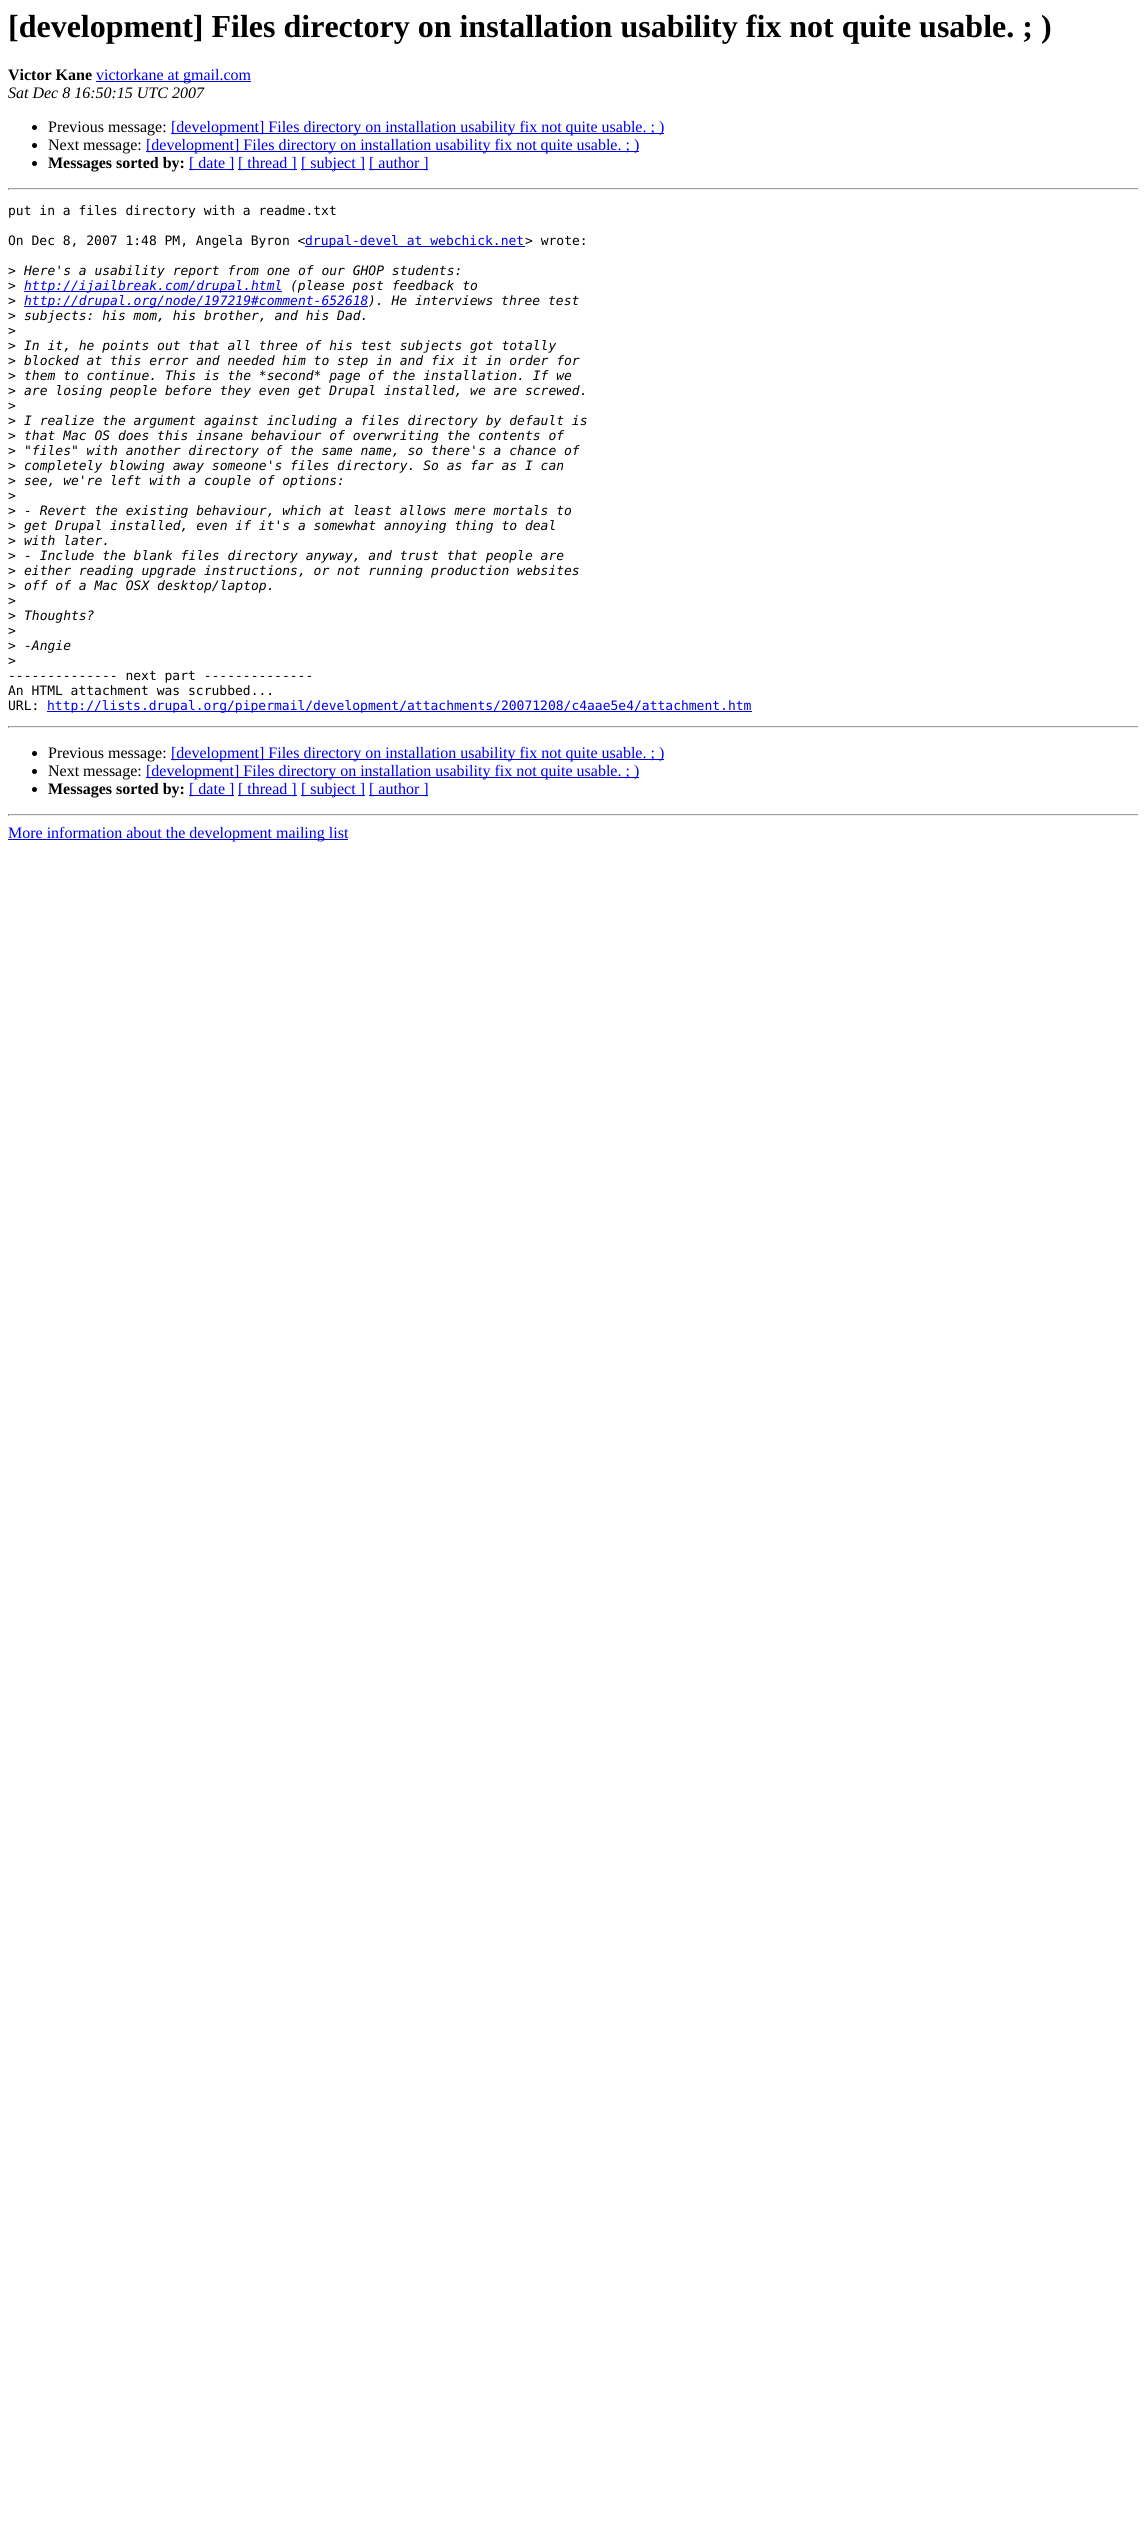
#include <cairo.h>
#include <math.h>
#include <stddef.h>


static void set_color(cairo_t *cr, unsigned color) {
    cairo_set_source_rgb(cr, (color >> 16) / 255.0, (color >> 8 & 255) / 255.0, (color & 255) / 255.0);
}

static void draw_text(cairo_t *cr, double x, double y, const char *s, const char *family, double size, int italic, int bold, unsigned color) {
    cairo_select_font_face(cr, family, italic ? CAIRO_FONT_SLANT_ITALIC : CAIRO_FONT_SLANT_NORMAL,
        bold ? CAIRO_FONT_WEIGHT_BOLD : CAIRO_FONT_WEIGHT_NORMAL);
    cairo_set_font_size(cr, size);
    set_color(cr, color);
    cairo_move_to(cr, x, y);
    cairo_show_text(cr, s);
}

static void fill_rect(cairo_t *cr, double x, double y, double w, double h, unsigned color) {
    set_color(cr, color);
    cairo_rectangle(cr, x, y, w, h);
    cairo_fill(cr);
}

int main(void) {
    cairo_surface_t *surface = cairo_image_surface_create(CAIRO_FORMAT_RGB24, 1147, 2544);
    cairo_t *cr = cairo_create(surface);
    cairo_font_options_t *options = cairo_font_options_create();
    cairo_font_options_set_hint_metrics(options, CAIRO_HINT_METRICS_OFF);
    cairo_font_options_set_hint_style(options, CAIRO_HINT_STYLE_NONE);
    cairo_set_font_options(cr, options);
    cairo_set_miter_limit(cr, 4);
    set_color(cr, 0xFFFFFF);
    cairo_paint(cr);
    draw_text(cr, 8, 37, "[development] Files directory on installation usability fix not quite usable. ; )", "Liberation Serif", 32, 0, 1, 0x000000);
    draw_text(cr, 8, 80, "Victor Kane", "Liberation Serif", 16, 0, 1, 0x000000);
    fill_rect(cr, 96, 81, 155, 1, 0x0000EE);
    draw_text(cr, 96, 80, "victorkane at gmail.com", "Liberation Serif", 16, 0, 0, 0x0000EE);
    draw_text(cr, 8, 98, "Sat Dec 8 16:50:15 UTC 2007", "Liberation Serif", 16, 1, 0, 0x000000);
    cairo_new_path(cr);
    cairo_arc(cr, 34.5, 127.5, 2.5, 0, 2 * M_PI);
    cairo_fill(cr);
    draw_text(cr, 48, 132, "Previous message:", "Liberation Serif", 16, 0, 0, 0x000000);
    fill_rect(cr, 171, 133, 493, 1, 0x0000EE);
    draw_text(cr, 171, 132, "[development] Files directory on installation usability fix not quite usable. ; )", "Liberation Serif", 16, 0, 0, 0x0000EE);
    set_color(cr, 0x000000);
    cairo_new_path(cr);
    cairo_arc(cr, 34.5, 145.5, 2.5, 0, 2 * M_PI);
    cairo_fill(cr);
    draw_text(cr, 48, 150, "Next message:", "Liberation Serif", 16, 0, 0, 0x000000);
    fill_rect(cr, 146, 151, 493, 1, 0x0000EE);
    draw_text(cr, 146, 150, "[development] Files directory on installation usability fix not quite usable. ; )", "Liberation Serif", 16, 0, 0, 0x0000EE);
    set_color(cr, 0x000000);
    cairo_new_path(cr);
    cairo_arc(cr, 34.5, 163.5, 2.5, 0, 2 * M_PI);
    cairo_fill(cr);
    draw_text(cr, 48, 168, "Messages sorted by:", "Liberation Serif", 16, 0, 1, 0x000000);
    fill_rect(cr, 189, 169, 45, 1, 0x0000EE);
    draw_text(cr, 189, 168, "[ date ]", "Liberation Serif", 16, 0, 0, 0x0000EE);
    fill_rect(cr, 238, 169, 59, 1, 0x0000EE);
    draw_text(cr, 238, 168, "[ thread ]", "Liberation Serif", 16, 0, 0, 0x0000EE);
    fill_rect(cr, 301, 169, 64, 1, 0x0000EE);
    draw_text(cr, 301, 168, "[ subject ]", "Liberation Serif", 16, 0, 0, 0x0000EE);
    fill_rect(cr, 369, 169, 59, 1, 0x0000EE);
    draw_text(cr, 369, 168, "[ author ]", "Liberation Serif", 16, 0, 0, 0x0000EE);
    fill_rect(cr, 8, 188, 1131, 1, 0x9F9F9F);
    fill_rect(cr, 1138, 188, 1, 2, 0xEEEEEE);
    fill_rect(cr, 8, 189, 1131, 1, 0xEEEEEE);
    fill_rect(cr, 8, 188, 1, 2, 0x9F9F9F);
    draw_text(cr, 8, 215, "put in a files directory with a readme.txt", "DejaVu Sans Mono", 13, 0, 0, 0x000000);
    draw_text(cr, 8, 245, "On Dec 8, 2007 1:48 PM, Angela Byron <", "DejaVu Sans Mono", 13, 0, 0, 0x000000);
    fill_rect(cr, 305, 246, 220, 1, 0x0000EE);
    draw_text(cr, 305, 245, "drupal-devel at webchick.net", "DejaVu Sans Mono", 13, 0, 0, 0x0000EE);
    draw_text(cr, 525, 245, "> wrote:", "DejaVu Sans Mono", 13, 0, 0, 0x000000);
    draw_text(cr, 8, 275, ">", "DejaVu Sans Mono", 13, 0, 0, 0x000000);
    draw_text(cr, 24, 275, "Here's a usability report from one of our GHOP students:", "DejaVu Sans Mono", 13, 1, 0, 0x000000);
    draw_text(cr, 8, 290, ">", "DejaVu Sans Mono", 13, 0, 0, 0x000000);
    fill_rect(cr, 24, 291, 258, 1, 0x0000EE);
    draw_text(cr, 24, 290, "http://ijailbreak.com/drupal.html", "DejaVu Sans Mono", 13, 1, 0, 0x0000EE);
    draw_text(cr, 290, 290, "(please post feedback to", "DejaVu Sans Mono", 13, 1, 0, 0x000000);
    draw_text(cr, 8, 305, ">", "DejaVu Sans Mono", 13, 0, 0, 0x000000);
    fill_rect(cr, 24, 306, 344, 1, 0x0000EE);
    draw_text(cr, 24, 305, "http://drupal.org/node/197219#comment-652618", "DejaVu Sans Mono", 13, 1, 0, 0x0000EE);
    draw_text(cr, 368, 305, "). He interviews three test", "DejaVu Sans Mono", 13, 1, 0, 0x000000);
    draw_text(cr, 8, 320, ">", "DejaVu Sans Mono", 13, 0, 0, 0x000000);
    draw_text(cr, 24, 320, "subjects: his mom, his brother, and his Dad.", "DejaVu Sans Mono", 13, 1, 0, 0x000000);
    draw_text(cr, 8, 335, ">", "DejaVu Sans Mono", 13, 0, 0, 0x000000);
    draw_text(cr, 8, 350, ">", "DejaVu Sans Mono", 13, 0, 0, 0x000000);
    draw_text(cr, 24, 350, "In it, he points out that all three of his test subjects got totally", "DejaVu Sans Mono", 13, 1, 0, 0x000000);
    draw_text(cr, 8, 365, ">", "DejaVu Sans Mono", 13, 0, 0, 0x000000);
    draw_text(cr, 24, 365, "blocked at this error and needed him to step in and fix it in order for", "DejaVu Sans Mono", 13, 1, 0, 0x000000);
    draw_text(cr, 8, 380, ">", "DejaVu Sans Mono", 13, 0, 0, 0x000000);
    draw_text(cr, 24, 380, "them to continue. This is the *second* page of the installation. If we", "DejaVu Sans Mono", 13, 1, 0, 0x000000);
    draw_text(cr, 8, 395, ">", "DejaVu Sans Mono", 13, 0, 0, 0x000000);
    draw_text(cr, 24, 395, "are losing people before they even get Drupal installed, we are screwed.", "DejaVu Sans Mono", 13, 1, 0, 0x000000);
    draw_text(cr, 8, 410, ">", "DejaVu Sans Mono", 13, 0, 0, 0x000000);
    draw_text(cr, 8, 425, ">", "DejaVu Sans Mono", 13, 0, 0, 0x000000);
    draw_text(cr, 24, 425, "I realize the argument against including a files directory by default is", "DejaVu Sans Mono", 13, 1, 0, 0x000000);
    draw_text(cr, 8, 440, ">", "DejaVu Sans Mono", 13, 0, 0, 0x000000);
    draw_text(cr, 24, 440, "that Mac OS does this insane behaviour of overwriting the contents of", "DejaVu Sans Mono", 13, 1, 0, 0x000000);
    draw_text(cr, 8, 455, ">", "DejaVu Sans Mono", 13, 0, 0, 0x000000);
    draw_text(cr, 24, 455, "\"files\" with another directory of the same name, so there's a chance of", "DejaVu Sans Mono", 13, 1, 0, 0x000000);
    draw_text(cr, 8, 470, ">", "DejaVu Sans Mono", 13, 0, 0, 0x000000);
    draw_text(cr, 24, 470, "completely blowing away someone's files directory. So as far as I can", "DejaVu Sans Mono", 13, 1, 0, 0x000000);
    draw_text(cr, 8, 485, ">", "DejaVu Sans Mono", 13, 0, 0, 0x000000);
    draw_text(cr, 24, 485, "see, we're left with a couple of options:", "DejaVu Sans Mono", 13, 1, 0, 0x000000);
    draw_text(cr, 8, 500, ">", "DejaVu Sans Mono", 13, 0, 0, 0x000000);
    draw_text(cr, 8, 515, ">", "DejaVu Sans Mono", 13, 0, 0, 0x000000);
    draw_text(cr, 24, 515, "- Revert the existing behaviour, which at least allows mere mortals to", "DejaVu Sans Mono", 13, 1, 0, 0x000000);
    draw_text(cr, 8, 530, ">", "DejaVu Sans Mono", 13, 0, 0, 0x000000);
    draw_text(cr, 24, 530, "get Drupal installed, even if it's a somewhat annoying thing to deal", "DejaVu Sans Mono", 13, 1, 0, 0x000000);
    draw_text(cr, 8, 545, ">", "DejaVu Sans Mono", 13, 0, 0, 0x000000);
    draw_text(cr, 24, 545, "with later.", "DejaVu Sans Mono", 13, 1, 0, 0x000000);
    draw_text(cr, 8, 560, ">", "DejaVu Sans Mono", 13, 0, 0, 0x000000);
    draw_text(cr, 24, 560, "- Include the blank files directory anyway, and trust that people are", "DejaVu Sans Mono", 13, 1, 0, 0x000000);
    draw_text(cr, 8, 575, ">", "DejaVu Sans Mono", 13, 0, 0, 0x000000);
    draw_text(cr, 24, 575, "either reading upgrade instructions, or not running production websites", "DejaVu Sans Mono", 13, 1, 0, 0x000000);
    draw_text(cr, 8, 590, ">", "DejaVu Sans Mono", 13, 0, 0, 0x000000);
    draw_text(cr, 24, 590, "off of a Mac OSX desktop/laptop.", "DejaVu Sans Mono", 13, 1, 0, 0x000000);
    draw_text(cr, 8, 605, ">", "DejaVu Sans Mono", 13, 0, 0, 0x000000);
    draw_text(cr, 8, 620, ">", "DejaVu Sans Mono", 13, 0, 0, 0x000000);
    draw_text(cr, 24, 620, "Thoughts?", "DejaVu Sans Mono", 13, 1, 0, 0x000000);
    draw_text(cr, 8, 635, ">", "DejaVu Sans Mono", 13, 0, 0, 0x000000);
    draw_text(cr, 8, 650, ">", "DejaVu Sans Mono", 13, 0, 0, 0x000000);
    draw_text(cr, 24, 650, "-Angie", "DejaVu Sans Mono", 13, 1, 0, 0x000000);
    draw_text(cr, 8, 665, ">", "DejaVu Sans Mono", 13, 0, 0, 0x000000);
    draw_text(cr, 8, 680, "-------------- next part --------------", "DejaVu Sans Mono", 13, 0, 0, 0x000000);
    draw_text(cr, 8, 695, "An HTML attachment was scrubbed...", "DejaVu Sans Mono", 13, 0, 0, 0x000000);
    draw_text(cr, 8, 710, "URL:", "DejaVu Sans Mono", 13, 0, 0, 0x000000);
    fill_rect(cr, 47, 711, 705, 1, 0x0000EE);
    draw_text(cr, 47, 710, "http://lists.drupal.org/pipermail/development/attachments/20071208/c4aae5e4/attachment.htm", "DejaVu Sans Mono", 13, 0, 0, 0x0000EE);
    fill_rect(cr, 8, 726, 1131, 1, 0x9F9F9F);
    fill_rect(cr, 1138, 726, 1, 2, 0xEEEEEE);
    fill_rect(cr, 8, 727, 1131, 1, 0xEEEEEE);
    fill_rect(cr, 8, 726, 1, 2, 0x9F9F9F);
    set_color(cr, 0x000000);
    cairo_new_path(cr);
    cairo_arc(cr, 34.5, 753.5, 2.5, 0, 2 * M_PI);
    cairo_fill(cr);
    draw_text(cr, 48, 758, "Previous message:", "Liberation Serif", 16, 0, 0, 0x000000);
    fill_rect(cr, 171, 759, 493, 1, 0x0000EE);
    draw_text(cr, 171, 758, "[development] Files directory on installation usability fix not quite usable. ; )", "Liberation Serif", 16, 0, 0, 0x0000EE);
    set_color(cr, 0x000000);
    cairo_new_path(cr);
    cairo_arc(cr, 34.5, 771.5, 2.5, 0, 2 * M_PI);
    cairo_fill(cr);
    draw_text(cr, 48, 776, "Next message:", "Liberation Serif", 16, 0, 0, 0x000000);
    fill_rect(cr, 146, 777, 493, 1, 0x0000EE);
    draw_text(cr, 146, 776, "[development] Files directory on installation usability fix not quite usable. ; )", "Liberation Serif", 16, 0, 0, 0x0000EE);
    set_color(cr, 0x000000);
    cairo_new_path(cr);
    cairo_arc(cr, 34.5, 789.5, 2.5, 0, 2 * M_PI);
    cairo_fill(cr);
    draw_text(cr, 48, 794, "Messages sorted by:", "Liberation Serif", 16, 0, 1, 0x000000);
    fill_rect(cr, 189, 795, 45, 1, 0x0000EE);
    draw_text(cr, 189, 794, "[ date ]", "Liberation Serif", 16, 0, 0, 0x0000EE);
    fill_rect(cr, 238, 795, 59, 1, 0x0000EE);
    draw_text(cr, 238, 794, "[ thread ]", "Liberation Serif", 16, 0, 0, 0x0000EE);
    fill_rect(cr, 301, 795, 64, 1, 0x0000EE);
    draw_text(cr, 301, 794, "[ subject ]", "Liberation Serif", 16, 0, 0, 0x0000EE);
    fill_rect(cr, 369, 795, 59, 1, 0x0000EE);
    draw_text(cr, 369, 794, "[ author ]", "Liberation Serif", 16, 0, 0, 0x0000EE);
    fill_rect(cr, 8, 814, 1131, 1, 0x9F9F9F);
    fill_rect(cr, 1138, 814, 1, 2, 0xEEEEEE);
    fill_rect(cr, 8, 815, 1131, 1, 0xEEEEEE);
    fill_rect(cr, 8, 814, 1, 2, 0x9F9F9F);
    fill_rect(cr, 8, 839, 340, 1, 0x0000EE);
    draw_text(cr, 8, 838, "More information about the development mailing list", "Liberation Serif", 16, 0, 0, 0x0000EE);
    cairo_surface_write_to_png(surface, "output.png");
    cairo_font_options_destroy(options);
    cairo_destroy(cr);
    cairo_surface_destroy(surface);
    return 0;
}
